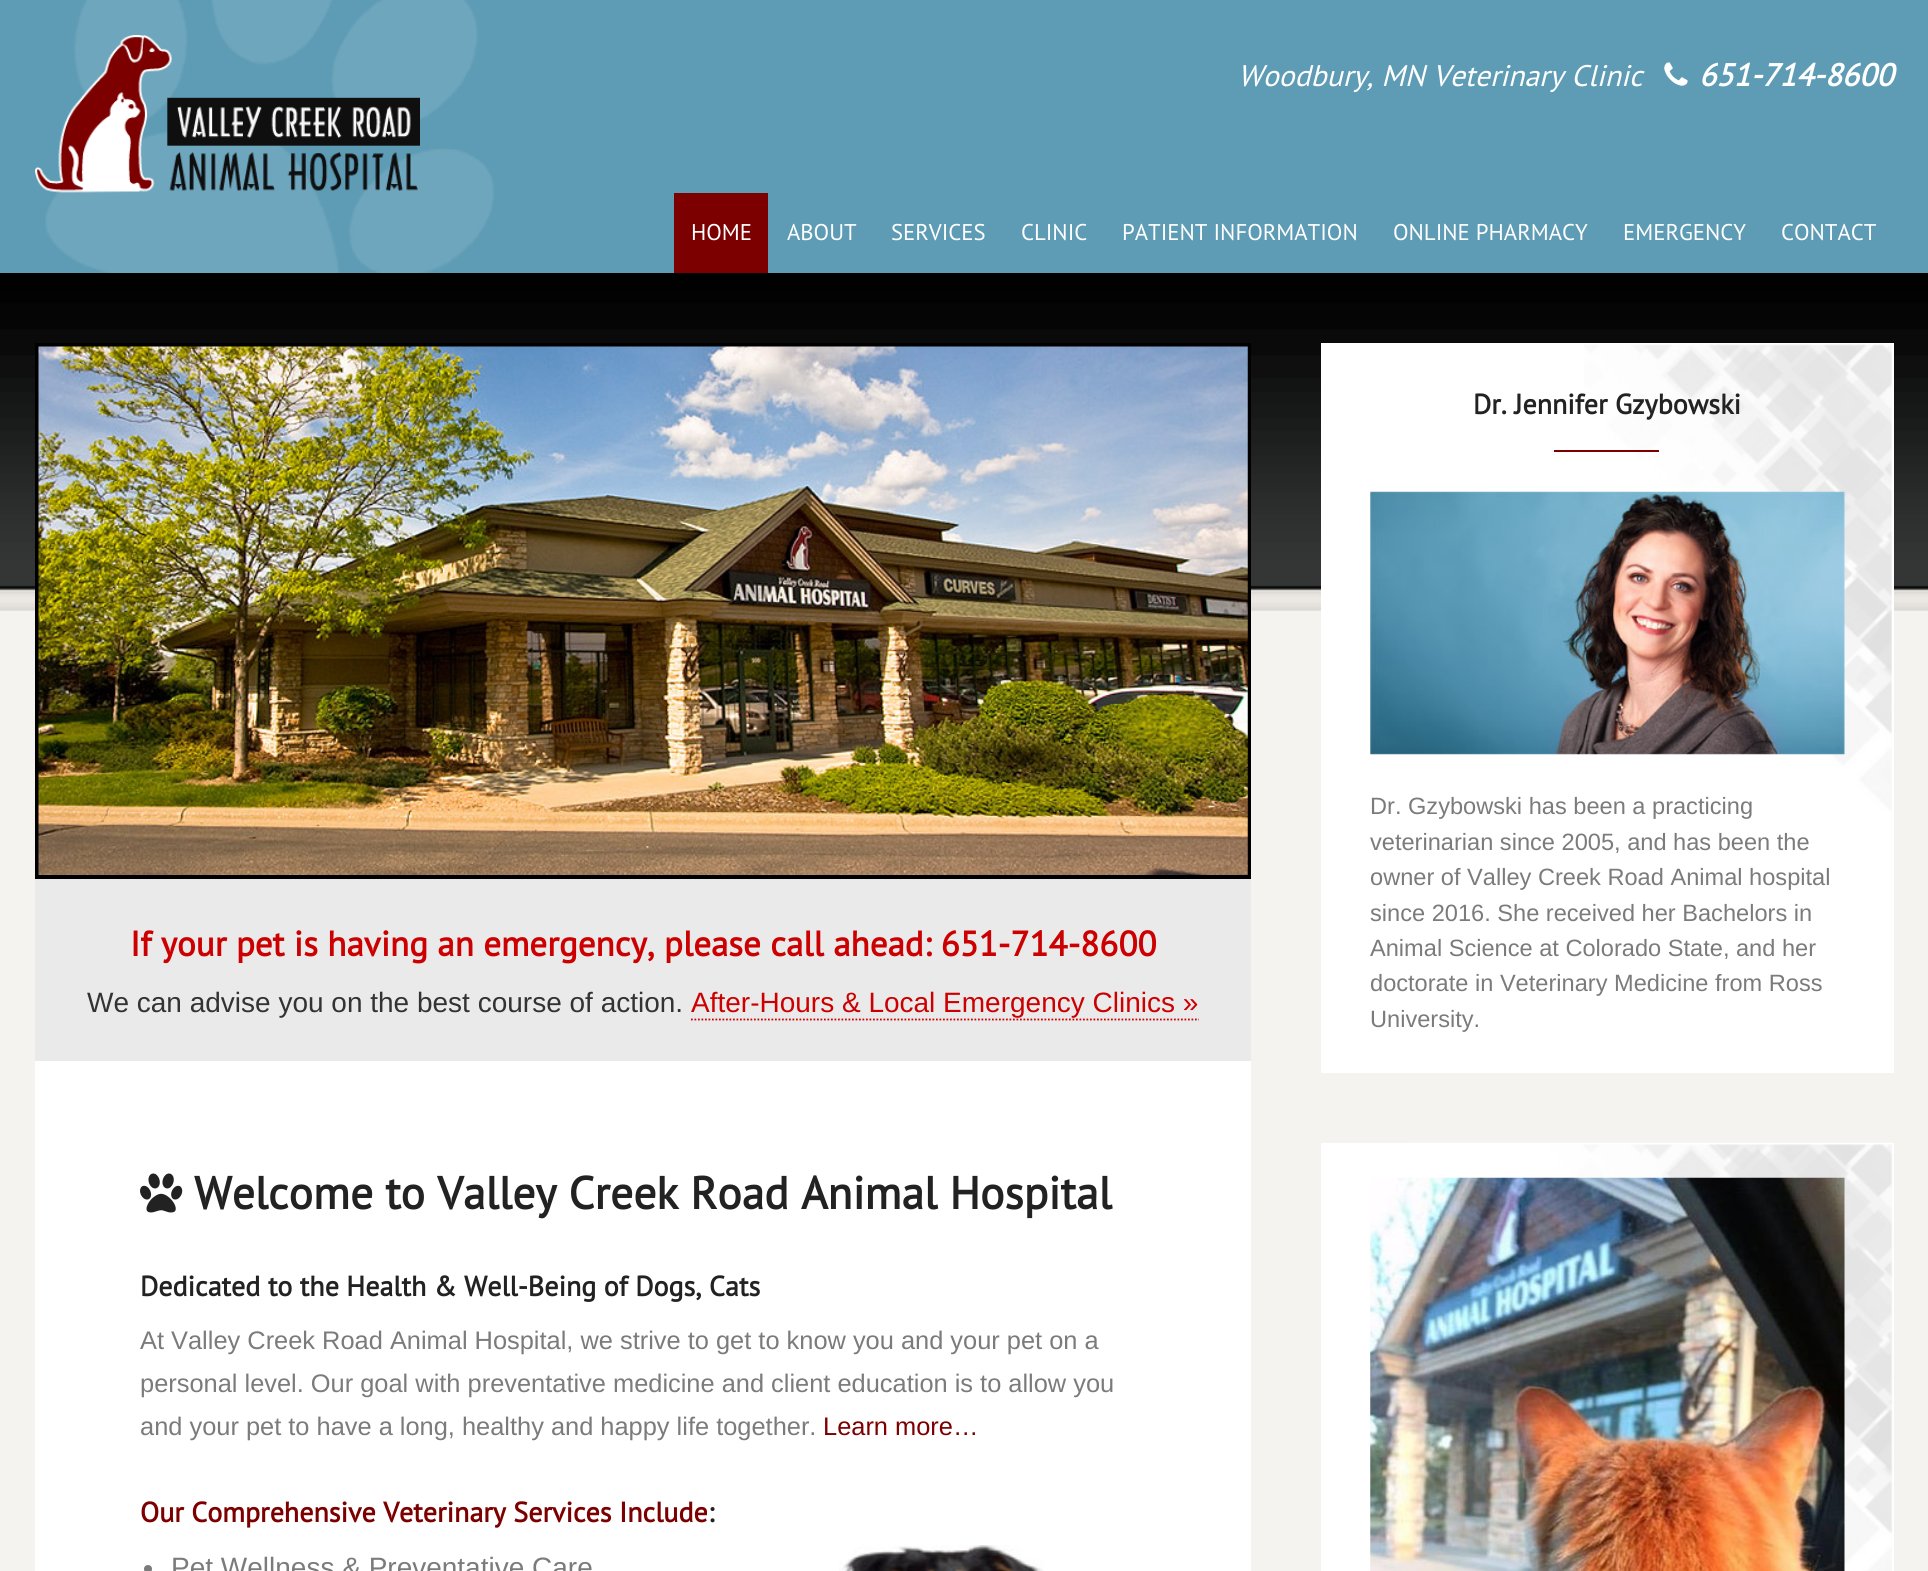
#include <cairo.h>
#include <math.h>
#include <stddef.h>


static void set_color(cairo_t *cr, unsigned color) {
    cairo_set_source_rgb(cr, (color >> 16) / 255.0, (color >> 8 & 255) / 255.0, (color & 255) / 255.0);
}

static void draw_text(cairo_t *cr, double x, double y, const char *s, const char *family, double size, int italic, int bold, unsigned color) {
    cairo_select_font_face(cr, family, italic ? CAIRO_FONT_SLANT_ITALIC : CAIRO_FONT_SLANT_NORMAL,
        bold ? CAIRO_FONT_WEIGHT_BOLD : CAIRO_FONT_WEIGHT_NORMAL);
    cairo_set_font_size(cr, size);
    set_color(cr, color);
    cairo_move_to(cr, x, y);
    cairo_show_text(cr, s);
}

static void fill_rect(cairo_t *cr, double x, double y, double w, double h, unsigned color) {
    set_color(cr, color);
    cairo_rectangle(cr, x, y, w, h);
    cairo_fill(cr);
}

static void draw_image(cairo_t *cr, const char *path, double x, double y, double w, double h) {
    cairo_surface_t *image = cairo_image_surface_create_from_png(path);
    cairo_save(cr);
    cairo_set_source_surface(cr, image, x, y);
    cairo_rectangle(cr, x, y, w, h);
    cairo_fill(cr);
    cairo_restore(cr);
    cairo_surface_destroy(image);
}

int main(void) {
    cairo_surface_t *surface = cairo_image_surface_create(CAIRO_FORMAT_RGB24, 1928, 1571);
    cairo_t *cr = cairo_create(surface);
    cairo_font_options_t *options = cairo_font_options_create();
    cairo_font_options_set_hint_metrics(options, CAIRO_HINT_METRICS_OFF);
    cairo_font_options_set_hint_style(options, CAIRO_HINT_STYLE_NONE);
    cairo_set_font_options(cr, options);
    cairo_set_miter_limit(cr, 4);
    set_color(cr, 0xF5F3EF);
    cairo_paint(cr);
    fill_rect(cr, 0, 0, 1928, 273, 0x5E9CB5);
    draw_image(cr, "assets/img1.png", 45, 0, 450, 273);
    draw_image(cr, "assets/img2.png", 35, 35, 385, 158);
    draw_text(cr, 1238, 86, "Woodbury, MN Veterinary Clinic", "PT Sans", 29.75, 1, 0, 0xFFFFFF);
    draw_image(cr, "assets/img3.png", 1664, 62, 24, 24);
    draw_text(cr, 1699, 86, "651-714-8600", "PT Sans", 31.5, 1, 1, 0xFFFFFF);
    fill_rect(cr, 674, 193, 94, 80, 0x7D0000);
    draw_text(cr, 691, 240, "HOME", "PT Sans", 22.75, 0, 0, 0xFFFFFF);
    draw_text(cr, 787, 240, "ABOUT", "PT Sans", 22.75, 0, 0, 0xFFFFFF);
    draw_text(cr, 891, 240, "SERVICES", "PT Sans", 22.75, 0, 0, 0xFFFFFF);
    draw_text(cr, 1021, 240, "CLINIC", "PT Sans", 22.75, 0, 0, 0xFFFFFF);
    draw_text(cr, 1122, 240, "PATIENT INFORMATION", "PT Sans", 22.75, 0, 0, 0xFFFFFF);
    draw_text(cr, 1393, 240, "ONLINE PHARMACY", "PT Sans", 22.75, 0, 0, 0xFFFFFF);
    draw_text(cr, 1623, 240, "EMERGENCY", "PT Sans", 22.75, 0, 0, 0xFFFFFF);
    draw_text(cr, 1781, 240, "CONTACT", "PT Sans", 22.75, 0, 0, 0xFFFFFF);
    draw_image(cr, "assets/img4.png", 0, 273, 1928, 338);
    fill_rect(cr, 1321, 343, 573, 730, 0xFFFFFF);
    draw_image(cr, "assets/img5.png", 1584, 344, 308, 467);
    draw_text(cr, 1473, 414, "Dr. Jennifer Gzybowski", "PT Sans", 28, 0, 1, 0x222222);
    fill_rect(cr, 1554, 450, 105, 2, 0x7D0000);
    draw_image(cr, "assets/img6.png", 1370, 491, 475, 264);
    draw_text(cr, 1370, 814, "Dr. Gzybowski has been a practicing", "Liberation Sans", 23.6, 0, 0, 0x7B7B7B);
    draw_text(cr, 1370, 850, "veterinarian since 2005, and has been the", "Liberation Sans", 23.6, 0, 0, 0x7B7B7B);
    draw_text(cr, 1370, 885, "owner of Valley Creek Road Animal hospital", "Liberation Sans", 23.6, 0, 0, 0x7B7B7B);
    draw_text(cr, 1370, 921, "since 2016. She received her Bachelors in", "Liberation Sans", 23.6, 0, 0, 0x7B7B7B);
    draw_text(cr, 1370, 956, "Animal Science at Colorado State, and her", "Liberation Sans", 23.6, 0, 0, 0x7B7B7B);
    draw_text(cr, 1370, 991, "doctorate in Veterinary Medicine from Ross", "Liberation Sans", 23.6, 0, 0, 0x7B7B7B);
    draw_text(cr, 1370, 1027, "University.", "Liberation Sans", 23.6, 0, 0, 0x7B7B7B);
    fill_rect(cr, 1321, 1143, 573, 428, 0xFFFFFF);
    draw_image(cr, "assets/img7.png", 1409, 1142, 484, 429);
    draw_image(cr, "assets/img8.png", 1370, 1177, 475, 394);
    cairo_rectangle(cr, 37, 345, 1212, 532);
    set_color(cr, 0x000000);
    cairo_set_line_width(cr, 4);
    cairo_stroke(cr);
    draw_image(cr, "assets/img9.png", 38, 346, 1210, 529);
    fill_rect(cr, 35, 879, 1216, 182, 0xEAEAEA);
    draw_text(cr, 130, 956, "If your pet is having an emergency, please call ahead: 651-714-8600", "PT Sans", 35, 0, 1, 0xCC0000);
    draw_text(cr, 87, 1012, "We can advise you on the best course of action.", "Liberation Sans", 28, 0, 0, 0x333333);
    draw_text(cr, 691, 1012, "After-Hours & Local Emergency Clinics »", "Liberation Sans", 28, 0, 0, 0xCC0000);
    cairo_new_path(cr);
    cairo_move_to(cr, 691, 1019.5);
    cairo_line_to(cr, 1199, 1019.5);
    cairo_set_line_width(cr, 1.8);
    cairo_set_dash(cr, (double[]){1.75, 1.75}, 2, 0);
    cairo_stroke(cr);
    fill_rect(cr, 35, 1061, 1216, 510, 0xFFFFFF);
    draw_image(cr, "assets/img10.png", 140, 1173, 43, 40);
    draw_text(cr, 194, 1209, "Welcome to Valley Creek Road Animal Hospital", "PT Sans", 45.5, 0, 1, 0x222222);
    draw_text(cr, 140, 1296, "Dedicated to the Health & Well-Being of Dogs, Cats", "PT Sans", 28, 0, 1, 0x222222);
    draw_text(cr, 140, 1349, "At Valley Creek Road Animal Hospital, we strive to get to know you and your pet on a", "Liberation Sans", 25.4, 0, 0, 0x7B7B7B);
    draw_text(cr, 140, 1392, "personal level. Our goal with preventative medicine and client education is to allow you", "Liberation Sans", 25.4, 0, 0, 0x7B7B7B);
    draw_text(cr, 140, 1435, "and your pet to have a long, healthy and happy life together.", "Liberation Sans", 25.4, 0, 0, 0x7B7B7B);
    draw_text(cr, 823, 1435, "Learn more…", "Liberation Sans", 25.4, 0, 0, 0x7D0000);
    draw_text(cr, 140, 1522, "Our Comprehensive Veterinary Services Include", "PT Sans", 28, 0, 1, 0x7D0000);
    draw_text(cr, 708, 1522, ":", "PT Sans", 28, 0, 1, 0x222222);
    set_color(cr, 0x7B7B7B);
    cairo_new_path(cr);
    cairo_arc(cr, 148, 1569, 4, 0, 2 * M_PI);
    cairo_fill(cr);
    draw_text(cr, 171, 1577, "Pet Wellness & Preventative Care", "Liberation Sans", 28, 0, 0, 0x7B7B7B);
    draw_image(cr, "assets/img11.png", 839, 1545, 205, 26);
    cairo_surface_write_to_png(surface, "output.png");
    cairo_font_options_destroy(options);
    cairo_destroy(cr);
    cairo_surface_destroy(surface);
    return 0;
}
